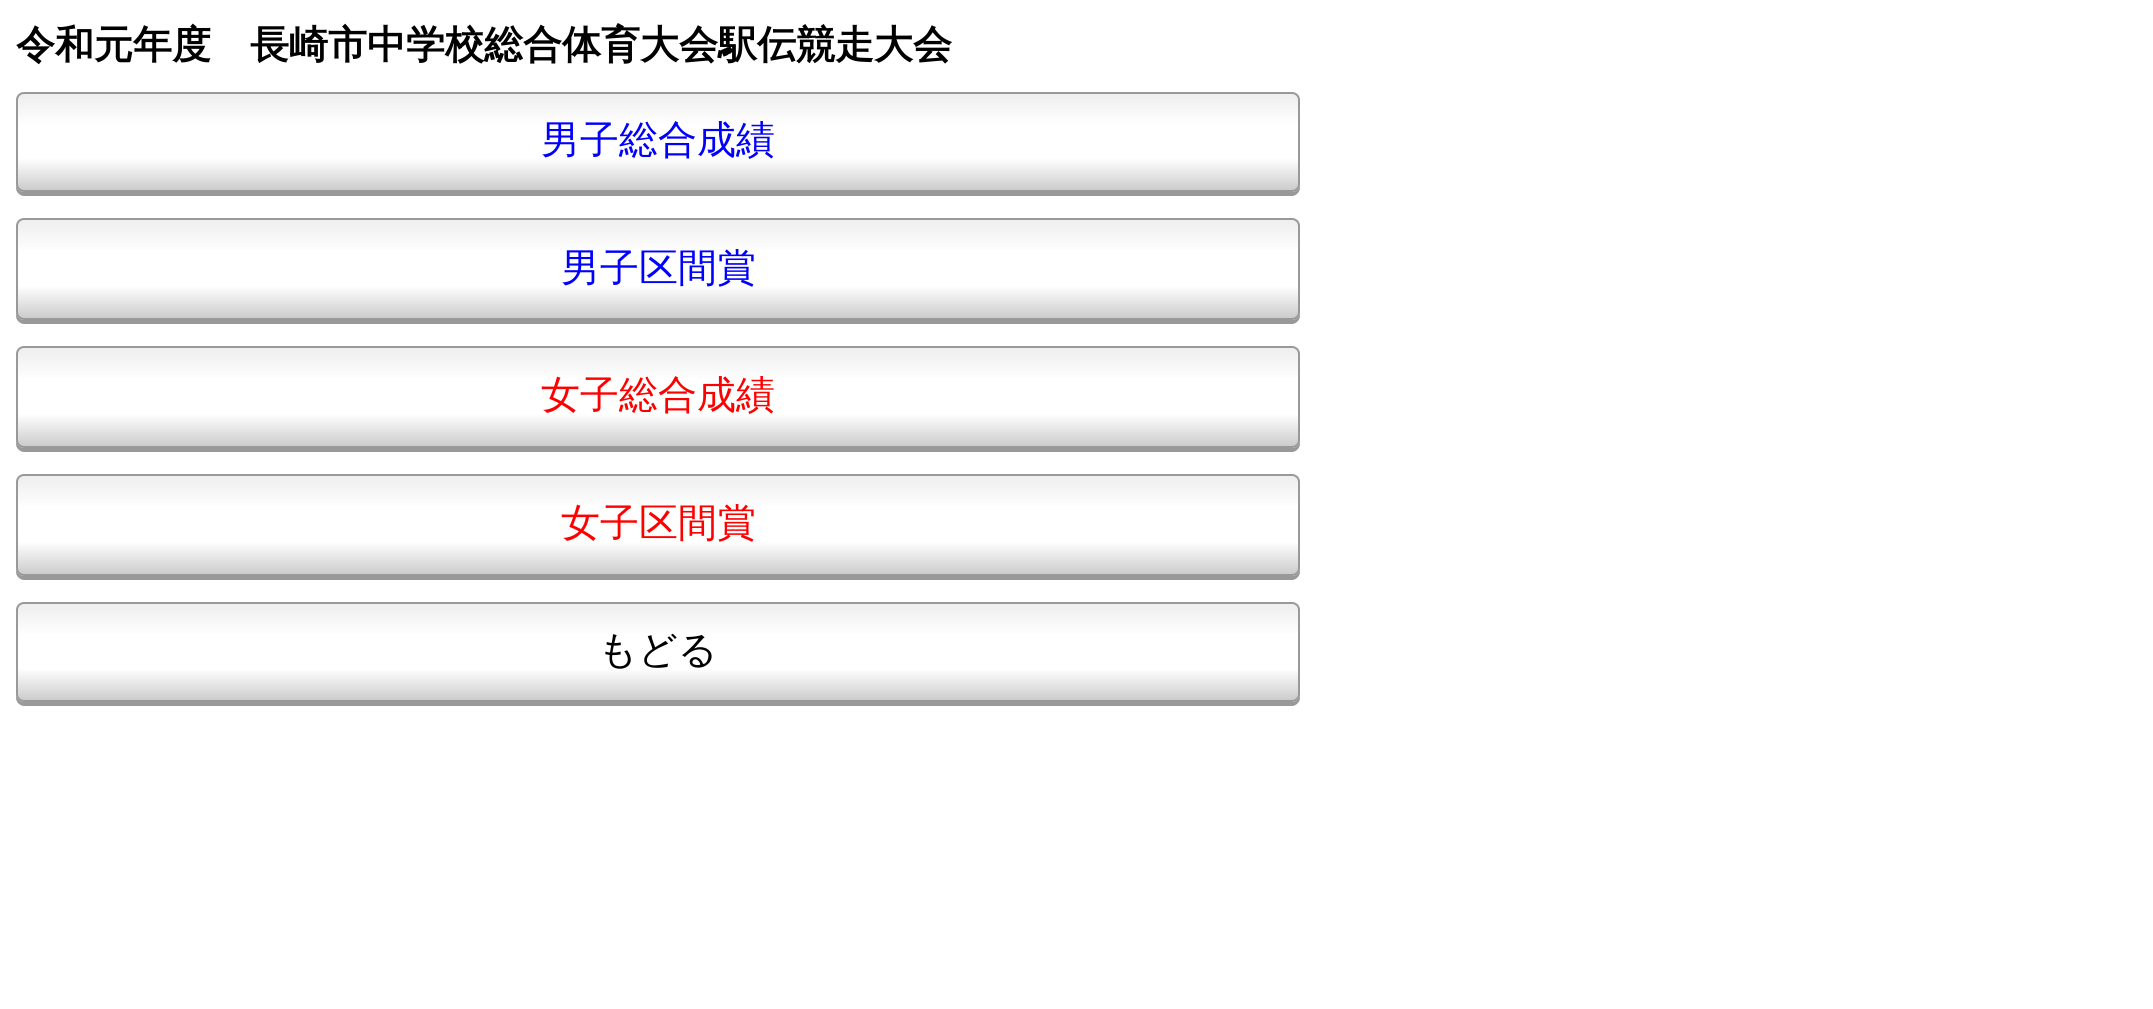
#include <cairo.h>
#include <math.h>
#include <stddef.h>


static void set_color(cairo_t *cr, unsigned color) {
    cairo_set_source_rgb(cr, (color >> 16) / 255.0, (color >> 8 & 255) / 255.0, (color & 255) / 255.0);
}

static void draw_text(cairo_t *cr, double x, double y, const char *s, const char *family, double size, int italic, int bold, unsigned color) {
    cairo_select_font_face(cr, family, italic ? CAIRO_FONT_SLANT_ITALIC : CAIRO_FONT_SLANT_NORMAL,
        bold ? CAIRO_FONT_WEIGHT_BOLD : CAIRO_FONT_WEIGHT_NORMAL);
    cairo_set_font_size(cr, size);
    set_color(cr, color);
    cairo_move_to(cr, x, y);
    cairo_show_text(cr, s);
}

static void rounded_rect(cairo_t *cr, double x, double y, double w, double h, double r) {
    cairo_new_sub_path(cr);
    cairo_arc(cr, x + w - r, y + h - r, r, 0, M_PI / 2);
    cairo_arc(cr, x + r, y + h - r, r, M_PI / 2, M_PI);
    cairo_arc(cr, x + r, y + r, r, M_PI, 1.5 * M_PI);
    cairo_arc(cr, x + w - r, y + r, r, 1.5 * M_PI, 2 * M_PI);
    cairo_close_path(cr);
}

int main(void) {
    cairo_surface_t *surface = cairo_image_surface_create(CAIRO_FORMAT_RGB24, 2153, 1009);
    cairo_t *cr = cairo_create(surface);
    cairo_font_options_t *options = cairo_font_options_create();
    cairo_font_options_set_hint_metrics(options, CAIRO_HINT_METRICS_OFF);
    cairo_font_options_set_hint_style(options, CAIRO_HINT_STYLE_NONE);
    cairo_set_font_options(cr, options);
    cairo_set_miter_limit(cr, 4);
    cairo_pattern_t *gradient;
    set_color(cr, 0xFFFFFF);
    cairo_paint(cr);
    draw_text(cr, 16, 58, "令和元年度　長崎市中学校総合体育大会駅伝競走大会", "WenQuanYi Zen Hei", 39, 0, 1, 0x000000);
    set_color(cr, 0x999999);
    cairo_new_path(cr);
    cairo_move_to(cr, 16, 184);
    cairo_line_to(cr, 16, 188);
    cairo_curve_to(cr, 16, 192, 20, 196, 24, 196);
    cairo_line_to(cr, 1292, 196);
    cairo_curve_to(cr, 1296, 196, 1300, 192, 1300, 188);
    cairo_line_to(cr, 1300, 184);
    cairo_curve_to(cr, 1300, 188, 1296, 192, 1292, 192);
    cairo_line_to(cr, 24, 192);
    cairo_curve_to(cr, 20, 192, 16, 188, 16, 184);
    cairo_close_path(cr);
    cairo_fill(cr);
    cairo_save(cr);
    rounded_rect(cr, 16, 92, 1284, 100, 8);
    cairo_clip(cr);
    gradient = cairo_pattern_create_linear(658, 94, 658, 190);
    cairo_pattern_add_color_stop_rgba(gradient, 0, 0.933, 0.933, 0.933, 1);
    cairo_pattern_add_color_stop_rgba(gradient, 0.33, 1, 1, 1, 1);
    cairo_pattern_add_color_stop_rgba(gradient, 0.67, 1, 1, 1, 1);
    cairo_pattern_add_color_stop_rgba(gradient, 1, 0.8, 0.8, 0.8, 1);
    cairo_set_source(cr, gradient);
    cairo_pattern_destroy(gradient);
    cairo_rectangle(cr, 16, 94, 1284, 96);
    cairo_fill(cr);
    cairo_restore(cr);
    rounded_rect(cr, 17, 93, 1282, 98, 7);
    cairo_stroke(cr);
    draw_text(cr, 541, 153, "男子総合成績", "WenQuanYi Zen Hei Medium", 39, 0, 0, 0x0000FF);
    set_color(cr, 0x999999);
    cairo_new_path(cr);
    cairo_move_to(cr, 16, 312);
    cairo_line_to(cr, 16, 316);
    cairo_curve_to(cr, 16, 320, 20, 324, 24, 324);
    cairo_line_to(cr, 1292, 324);
    cairo_curve_to(cr, 1296, 324, 1300, 320, 1300, 316);
    cairo_line_to(cr, 1300, 312);
    cairo_curve_to(cr, 1300, 316, 1296, 320, 1292, 320);
    cairo_line_to(cr, 24, 320);
    cairo_curve_to(cr, 20, 320, 16, 316, 16, 312);
    cairo_close_path(cr);
    cairo_fill(cr);
    cairo_save(cr);
    rounded_rect(cr, 16, 218, 1284, 102, 8);
    cairo_clip(cr);
    gradient = cairo_pattern_create_linear(658, 220, 658, 318);
    cairo_pattern_add_color_stop_rgba(gradient, 0, 0.933, 0.933, 0.933, 1);
    cairo_pattern_add_color_stop_rgba(gradient, 0.33, 1, 1, 1, 1);
    cairo_pattern_add_color_stop_rgba(gradient, 0.67, 1, 1, 1, 1);
    cairo_pattern_add_color_stop_rgba(gradient, 1, 0.8, 0.8, 0.8, 1);
    cairo_set_source(cr, gradient);
    cairo_pattern_destroy(gradient);
    cairo_rectangle(cr, 16, 220, 1284, 98);
    cairo_fill(cr);
    cairo_restore(cr);
    rounded_rect(cr, 17, 219, 1282, 100, 7);
    cairo_stroke(cr);
    draw_text(cr, 561, 281, "男子区間賞", "WenQuanYi Zen Hei Medium", 39, 0, 0, 0x0000FF);
    set_color(cr, 0x999999);
    cairo_new_path(cr);
    cairo_move_to(cr, 16, 440);
    cairo_line_to(cr, 16, 444);
    cairo_curve_to(cr, 16, 448, 20, 452, 24, 452);
    cairo_line_to(cr, 1292, 452);
    cairo_curve_to(cr, 1296, 452, 1300, 448, 1300, 444);
    cairo_line_to(cr, 1300, 440);
    cairo_curve_to(cr, 1300, 444, 1296, 448, 1292, 448);
    cairo_line_to(cr, 24, 448);
    cairo_curve_to(cr, 20, 448, 16, 444, 16, 440);
    cairo_close_path(cr);
    cairo_fill(cr);
    cairo_save(cr);
    rounded_rect(cr, 16, 346, 1284, 102, 8);
    cairo_clip(cr);
    gradient = cairo_pattern_create_linear(658, 348, 658, 446);
    cairo_pattern_add_color_stop_rgba(gradient, 0, 0.933, 0.933, 0.933, 1);
    cairo_pattern_add_color_stop_rgba(gradient, 0.33, 1, 1, 1, 1);
    cairo_pattern_add_color_stop_rgba(gradient, 0.67, 1, 1, 1, 1);
    cairo_pattern_add_color_stop_rgba(gradient, 1, 0.8, 0.8, 0.8, 1);
    cairo_set_source(cr, gradient);
    cairo_pattern_destroy(gradient);
    cairo_rectangle(cr, 16, 348, 1284, 98);
    cairo_fill(cr);
    cairo_restore(cr);
    rounded_rect(cr, 17, 347, 1282, 100, 7);
    cairo_stroke(cr);
    draw_text(cr, 541, 408, "女子総合成績", "WenQuanYi Zen Hei Medium", 39, 0, 0, 0xFF0000);
    set_color(cr, 0x999999);
    cairo_new_path(cr);
    cairo_move_to(cr, 16, 568);
    cairo_line_to(cr, 16, 572);
    cairo_curve_to(cr, 16, 576, 20, 580, 24, 580);
    cairo_line_to(cr, 1292, 580);
    cairo_curve_to(cr, 1296, 580, 1300, 576, 1300, 572);
    cairo_line_to(cr, 1300, 568);
    cairo_curve_to(cr, 1300, 572, 1296, 576, 1292, 576);
    cairo_line_to(cr, 24, 576);
    cairo_curve_to(cr, 20, 576, 16, 572, 16, 568);
    cairo_close_path(cr);
    cairo_fill(cr);
    cairo_save(cr);
    rounded_rect(cr, 16, 474, 1284, 102, 8);
    cairo_clip(cr);
    gradient = cairo_pattern_create_linear(658, 476, 658, 574);
    cairo_pattern_add_color_stop_rgba(gradient, 0, 0.933, 0.933, 0.933, 1);
    cairo_pattern_add_color_stop_rgba(gradient, 0.33, 1, 1, 1, 1);
    cairo_pattern_add_color_stop_rgba(gradient, 0.67, 1, 1, 1, 1);
    cairo_pattern_add_color_stop_rgba(gradient, 1, 0.8, 0.8, 0.8, 1);
    cairo_set_source(cr, gradient);
    cairo_pattern_destroy(gradient);
    cairo_rectangle(cr, 16, 476, 1284, 98);
    cairo_fill(cr);
    cairo_restore(cr);
    rounded_rect(cr, 17, 475, 1282, 100, 7);
    cairo_stroke(cr);
    draw_text(cr, 561, 536, "女子区間賞", "WenQuanYi Zen Hei Medium", 39, 0, 0, 0xFF0000);
    set_color(cr, 0x999999);
    cairo_new_path(cr);
    cairo_move_to(cr, 16, 694);
    cairo_line_to(cr, 16, 698);
    cairo_curve_to(cr, 16, 702, 20, 706, 24, 706);
    cairo_line_to(cr, 1292, 706);
    cairo_curve_to(cr, 1296, 706, 1300, 702, 1300, 698);
    cairo_line_to(cr, 1300, 694);
    cairo_curve_to(cr, 1300, 698, 1296, 702, 1292, 702);
    cairo_line_to(cr, 24, 702);
    cairo_curve_to(cr, 20, 702, 16, 698, 16, 694);
    cairo_close_path(cr);
    cairo_fill(cr);
    cairo_save(cr);
    rounded_rect(cr, 16, 602, 1284, 100, 8);
    cairo_clip(cr);
    gradient = cairo_pattern_create_linear(658, 604, 658, 700);
    cairo_pattern_add_color_stop_rgba(gradient, 0, 0.933, 0.933, 0.933, 1);
    cairo_pattern_add_color_stop_rgba(gradient, 0.33, 1, 1, 1, 1);
    cairo_pattern_add_color_stop_rgba(gradient, 0.67, 1, 1, 1, 1);
    cairo_pattern_add_color_stop_rgba(gradient, 1, 0.8, 0.8, 0.8, 1);
    cairo_set_source(cr, gradient);
    cairo_pattern_destroy(gradient);
    cairo_rectangle(cr, 16, 604, 1284, 96);
    cairo_fill(cr);
    cairo_restore(cr);
    rounded_rect(cr, 17, 603, 1282, 98, 7);
    cairo_stroke(cr);
    draw_text(cr, 598, 663, "もどる", "WenQuanYi Zen Hei Medium", 39, 0, 0, 0x000000);
    cairo_surface_write_to_png(surface, "output.png");
    cairo_font_options_destroy(options);
    cairo_destroy(cr);
    cairo_surface_destroy(surface);
    return 0;
}
